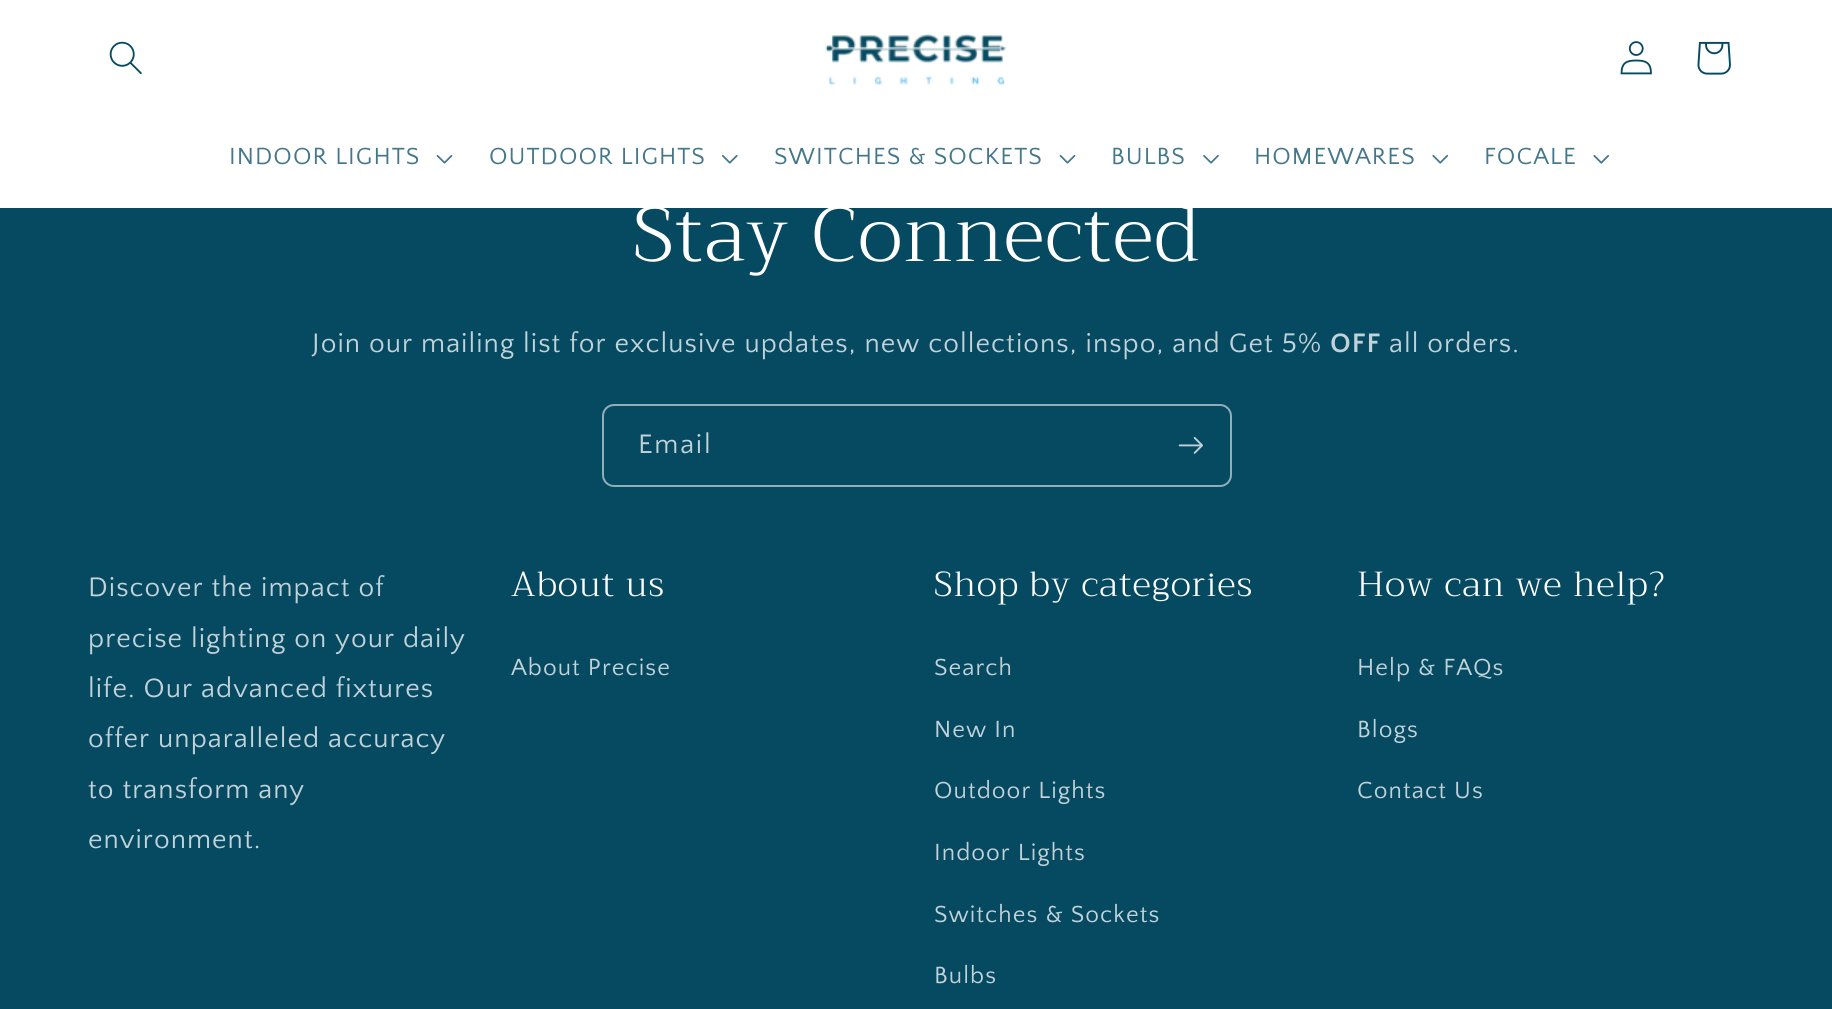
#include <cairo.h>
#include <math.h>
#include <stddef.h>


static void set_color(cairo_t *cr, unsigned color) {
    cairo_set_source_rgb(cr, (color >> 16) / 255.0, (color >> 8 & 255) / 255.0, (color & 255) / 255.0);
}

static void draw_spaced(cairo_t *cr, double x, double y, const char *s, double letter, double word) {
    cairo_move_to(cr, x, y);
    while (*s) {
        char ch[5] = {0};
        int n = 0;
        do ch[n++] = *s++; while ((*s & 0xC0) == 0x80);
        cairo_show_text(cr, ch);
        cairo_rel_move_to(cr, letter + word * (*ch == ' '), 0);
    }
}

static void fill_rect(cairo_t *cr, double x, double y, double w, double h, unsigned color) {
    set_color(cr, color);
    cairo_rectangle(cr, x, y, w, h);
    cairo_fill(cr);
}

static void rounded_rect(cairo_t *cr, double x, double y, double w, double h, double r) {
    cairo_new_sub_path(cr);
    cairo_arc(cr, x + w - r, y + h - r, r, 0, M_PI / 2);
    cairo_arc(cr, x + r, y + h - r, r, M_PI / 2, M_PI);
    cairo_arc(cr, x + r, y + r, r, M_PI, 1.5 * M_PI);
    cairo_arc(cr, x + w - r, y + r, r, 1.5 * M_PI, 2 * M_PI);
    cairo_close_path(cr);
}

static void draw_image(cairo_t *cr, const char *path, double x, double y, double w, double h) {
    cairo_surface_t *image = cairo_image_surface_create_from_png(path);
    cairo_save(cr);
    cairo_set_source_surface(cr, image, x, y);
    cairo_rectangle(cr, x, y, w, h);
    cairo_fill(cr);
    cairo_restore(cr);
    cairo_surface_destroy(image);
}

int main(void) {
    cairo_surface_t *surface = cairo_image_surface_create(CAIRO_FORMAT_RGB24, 1832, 1009);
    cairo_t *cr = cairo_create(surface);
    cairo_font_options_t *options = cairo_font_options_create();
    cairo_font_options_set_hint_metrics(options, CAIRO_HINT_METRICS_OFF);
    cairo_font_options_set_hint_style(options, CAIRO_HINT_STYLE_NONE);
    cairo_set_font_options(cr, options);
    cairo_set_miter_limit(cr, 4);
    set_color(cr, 0x064A62);
    cairo_paint(cr);
    fill_rect(cr, 0, 0, 1832, 208, 0xFFFFFF);
    draw_image(cr, "assets/img1.png", 109, 41, 33, 34);
    draw_image(cr, "assets/img2.png", 825, 34, 181, 51);
    draw_image(cr, "assets/img3.png", 1620, 41, 32, 34);
    draw_image(cr, "assets/img4.png", 1697, 41, 34, 34);
    cairo_select_font_face(cr, "Quattrocento Sans", CAIRO_FONT_SLANT_NORMAL, CAIRO_FONT_WEIGHT_NORMAL);
    cairo_set_font_size(cr, 24.5);
    set_color(cr, 0x447789);
    draw_spaced(cr, 229, 164, "INDOOR LIGHTS", 1.05, 0);
    draw_image(cr, "assets/img5.png", 436, 154, 17, 10);
    draw_spaced(cr, 489, 164, "OUTDOOR LIGHTS", 1.05, 0);
    draw_image(cr, "assets/img6.png", 721, 154, 17, 10);
    draw_spaced(cr, 774, 164, "SWITCHES & SOCKETS", 1.05, 0);
    draw_image(cr, "assets/img5.png", 1059, 154, 17, 10);
    draw_spaced(cr, 1111, 164, "BULBS", 1.05, 0);
    draw_image(cr, "assets/img7.png", 1203, 155, 16, 9);
    draw_spaced(cr, 1254, 164, "HOMEWARES", 1.05, 0);
    draw_image(cr, "assets/img8.png", 1432, 154, 17, 10);
    draw_spaced(cr, 1484, 164, "FOCALE", 1.05, 0);
    draw_image(cr, "assets/img8.png", 1593, 154, 17, 10);
    cairo_select_font_face(cr, "Trirong Light", CAIRO_FONT_SLANT_NORMAL, CAIRO_FONT_WEIGHT_NORMAL);
    cairo_set_font_size(cr, 77);
    set_color(cr, 0xFFFFFF);
    draw_spaced(cr, 633, 261, "Stay Connected", 1.2, 0);
    cairo_select_font_face(cr, "Quattrocento Sans", CAIRO_FONT_SLANT_NORMAL, CAIRO_FONT_WEIGHT_NORMAL);
    cairo_set_font_size(cr, 28);
    set_color(cr, 0xC1D2D8);
    draw_spaced(cr, 312, 352, "Join our mailing list for exclusive updates, new collections, inspo, and Get 5%", 1.05, 0);
    cairo_select_font_face(cr, "Quattrocento Sans", CAIRO_FONT_SLANT_NORMAL, CAIRO_FONT_WEIGHT_BOLD);
    draw_spaced(cr, 1330, 352, "OFF", 1.05, 0);
    cairo_select_font_face(cr, "Quattrocento Sans", CAIRO_FONT_SLANT_NORMAL, CAIRO_FONT_WEIGHT_NORMAL);
    draw_spaced(cr, 1389, 352, "all orders.", 1.05, 0);
    rounded_rect(cr, 603, 405, 628, 81, 11);
    set_color(cr, 0x8FAEB8);
    cairo_stroke(cr);
    set_color(cr, 0xC1D2D8);
    draw_spaced(cr, 638, 453, "Email", 1.75, 0);
    draw_image(cr, "assets/img9.png", 1178, 437, 25, 17);
    draw_spaced(cr, 88, 596, "Discover the impact of", 1.05, 0);
    draw_spaced(cr, 88, 647, "precise lighting on your daily", 1.05, 0);
    draw_spaced(cr, 88, 697, "life. Our advanced fixtures", 1.05, 0);
    draw_spaced(cr, 88, 747, "offer unparalleled accuracy", 1.05, 0);
    draw_spaced(cr, 88, 798, "to transform any", 1.05, 0);
    draw_spaced(cr, 88, 848, "environment.", 1.05, 0);
    cairo_select_font_face(cr, "Trirong Light", CAIRO_FONT_SLANT_NORMAL, CAIRO_FONT_WEIGHT_NORMAL);
    cairo_set_font_size(cr, 34.75);
    set_color(cr, 0xFFFFFF);
    draw_spaced(cr, 511, 596, "About us", 1.2, 0);
    cairo_select_font_face(cr, "Quattrocento Sans", CAIRO_FONT_SLANT_NORMAL, CAIRO_FONT_WEIGHT_NORMAL);
    cairo_set_font_size(cr, 24.5);
    set_color(cr, 0xC1D2D8);
    draw_spaced(cr, 511, 675, "About Precise", 1.05, 0);
    cairo_select_font_face(cr, "Trirong Light", CAIRO_FONT_SLANT_NORMAL, CAIRO_FONT_WEIGHT_NORMAL);
    cairo_set_font_size(cr, 34.75);
    set_color(cr, 0xFFFFFF);
    draw_spaced(cr, 934, 596, "Shop by categories", 1.2, 0);
    cairo_select_font_face(cr, "Quattrocento Sans", CAIRO_FONT_SLANT_NORMAL, CAIRO_FONT_WEIGHT_NORMAL);
    cairo_set_font_size(cr, 24.5);
    set_color(cr, 0xC1D2D8);
    draw_spaced(cr, 934, 675, "Search", 1.05, 0);
    draw_spaced(cr, 934, 737, "New In", 1.05, 0);
    draw_spaced(cr, 934, 798, "Outdoor Lights", 1.05, 0);
    draw_spaced(cr, 934, 860, "Indoor Lights", 1.05, 0);
    draw_spaced(cr, 934, 922, "Switches & Sockets", 1.05, 0);
    draw_spaced(cr, 934, 983, "Bulbs", 1.05, 0);
    cairo_select_font_face(cr, "Trirong Light", CAIRO_FONT_SLANT_NORMAL, CAIRO_FONT_WEIGHT_NORMAL);
    cairo_set_font_size(cr, 34.75);
    set_color(cr, 0xFFFFFF);
    draw_spaced(cr, 1357, 596, "How can we help?", 1.2, 0);
    cairo_select_font_face(cr, "Quattrocento Sans", CAIRO_FONT_SLANT_NORMAL, CAIRO_FONT_WEIGHT_NORMAL);
    cairo_set_font_size(cr, 24.5);
    set_color(cr, 0xC1D2D8);
    draw_spaced(cr, 1357, 675, "Help & FAQs", 1.05, 0);
    draw_spaced(cr, 1357, 737, "Blogs", 1.05, 0);
    draw_spaced(cr, 1357, 798, "Contact Us", 1.05, 0);
    cairo_surface_write_to_png(surface, "output.png");
    cairo_font_options_destroy(options);
    cairo_destroy(cr);
    cairo_surface_destroy(surface);
    return 0;
}
